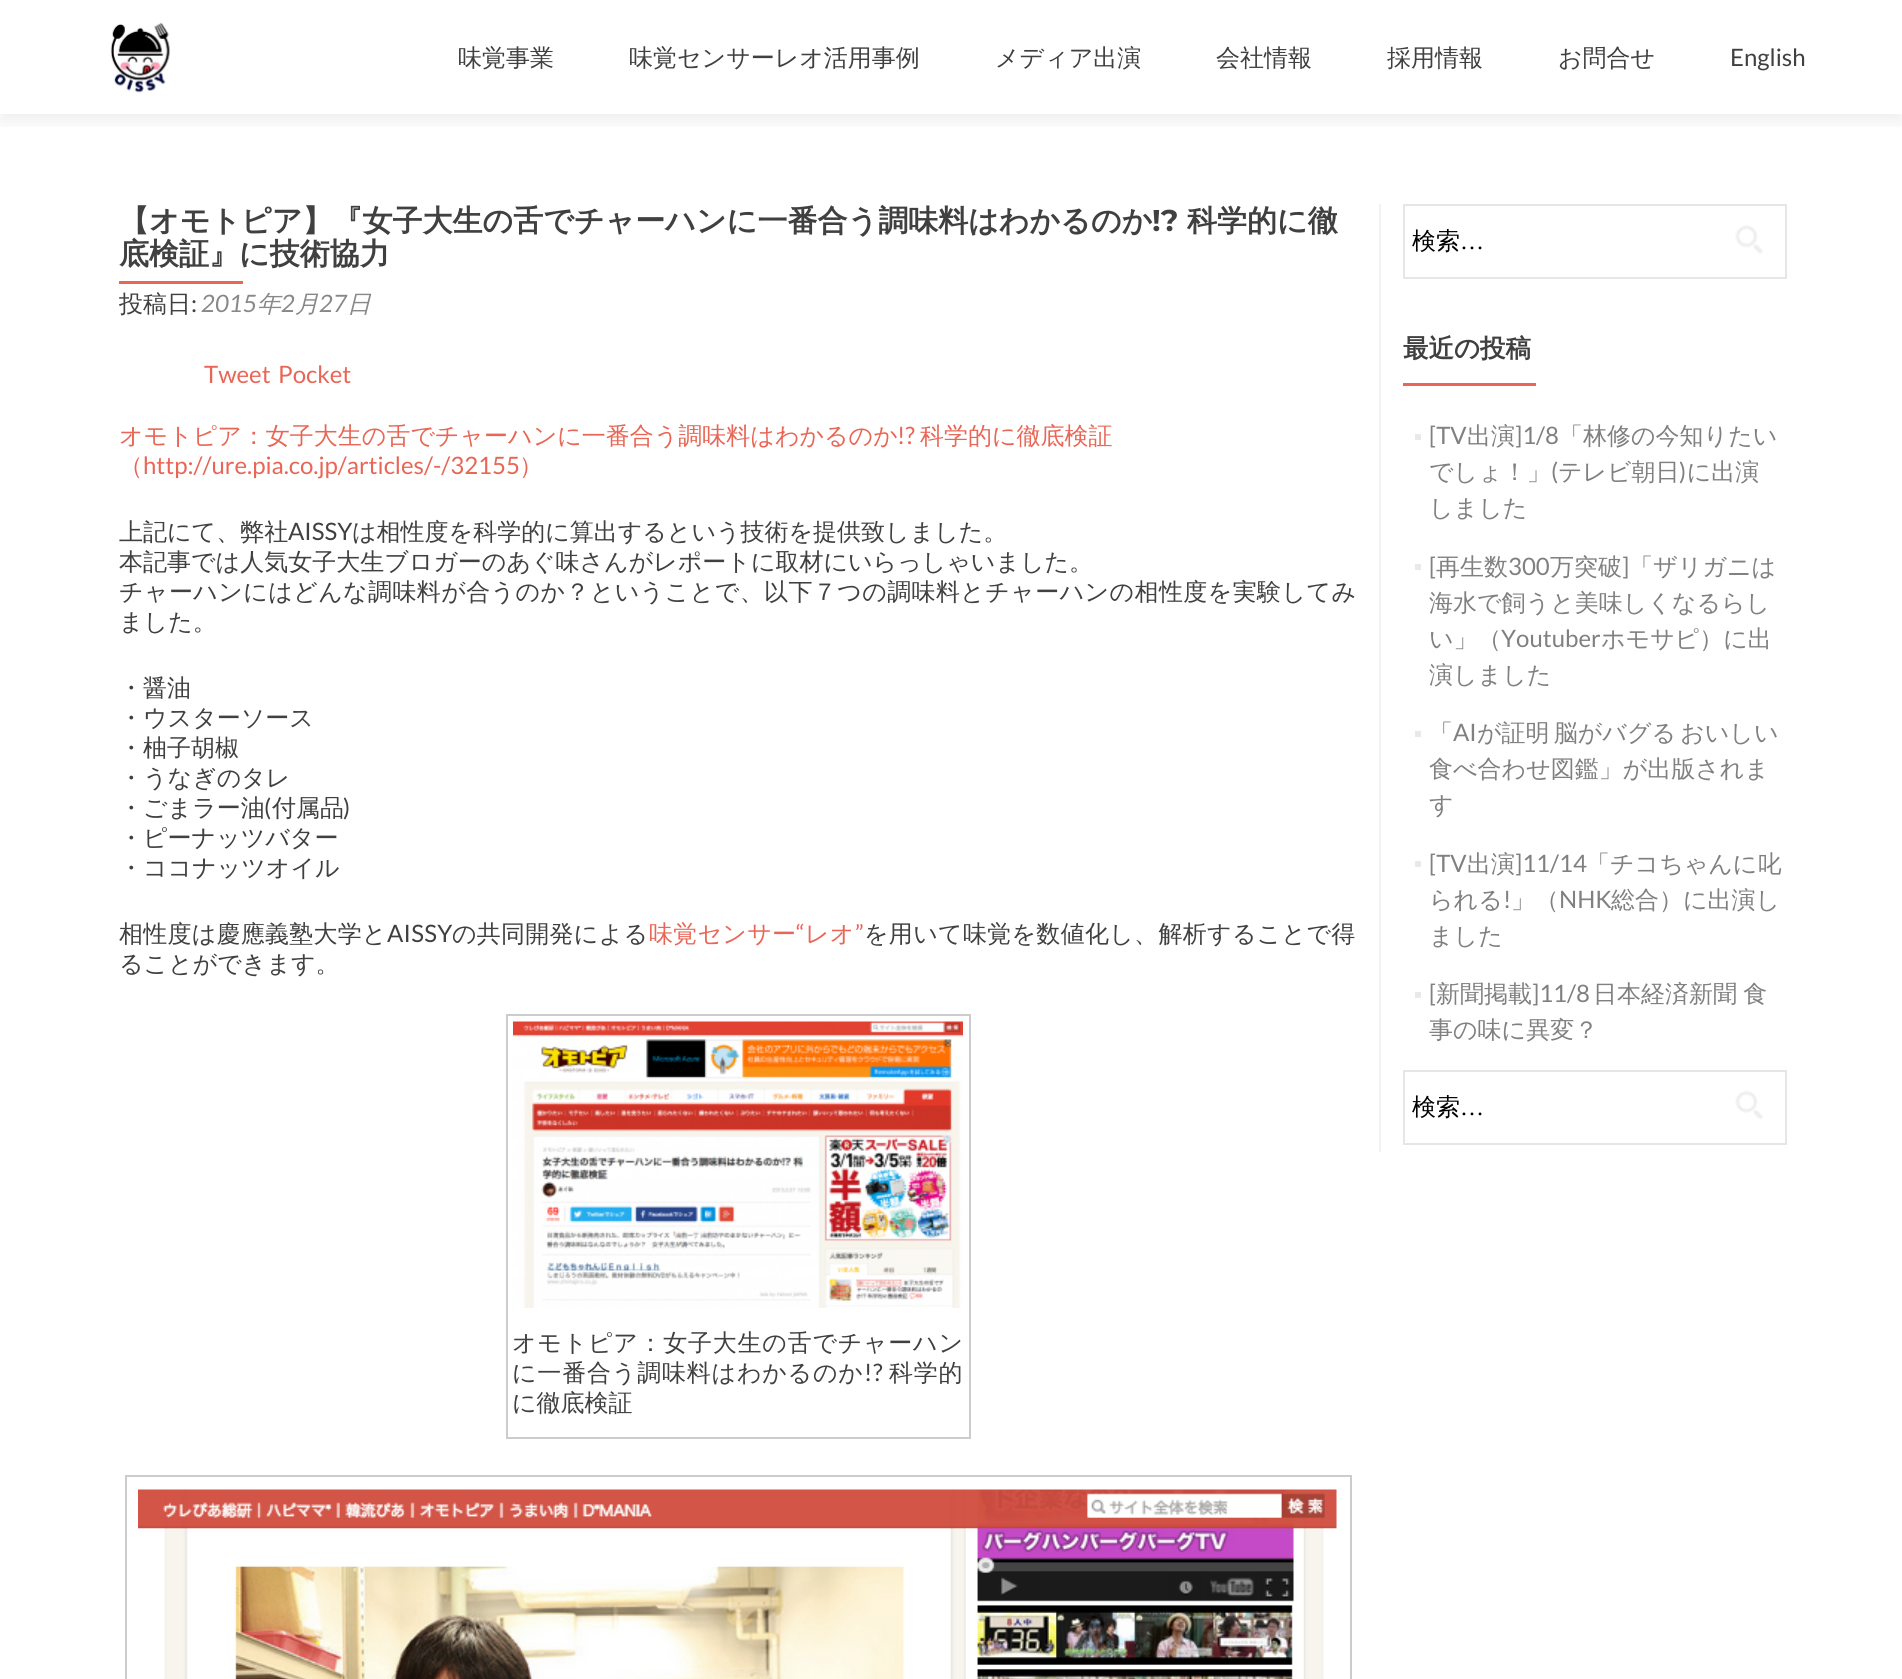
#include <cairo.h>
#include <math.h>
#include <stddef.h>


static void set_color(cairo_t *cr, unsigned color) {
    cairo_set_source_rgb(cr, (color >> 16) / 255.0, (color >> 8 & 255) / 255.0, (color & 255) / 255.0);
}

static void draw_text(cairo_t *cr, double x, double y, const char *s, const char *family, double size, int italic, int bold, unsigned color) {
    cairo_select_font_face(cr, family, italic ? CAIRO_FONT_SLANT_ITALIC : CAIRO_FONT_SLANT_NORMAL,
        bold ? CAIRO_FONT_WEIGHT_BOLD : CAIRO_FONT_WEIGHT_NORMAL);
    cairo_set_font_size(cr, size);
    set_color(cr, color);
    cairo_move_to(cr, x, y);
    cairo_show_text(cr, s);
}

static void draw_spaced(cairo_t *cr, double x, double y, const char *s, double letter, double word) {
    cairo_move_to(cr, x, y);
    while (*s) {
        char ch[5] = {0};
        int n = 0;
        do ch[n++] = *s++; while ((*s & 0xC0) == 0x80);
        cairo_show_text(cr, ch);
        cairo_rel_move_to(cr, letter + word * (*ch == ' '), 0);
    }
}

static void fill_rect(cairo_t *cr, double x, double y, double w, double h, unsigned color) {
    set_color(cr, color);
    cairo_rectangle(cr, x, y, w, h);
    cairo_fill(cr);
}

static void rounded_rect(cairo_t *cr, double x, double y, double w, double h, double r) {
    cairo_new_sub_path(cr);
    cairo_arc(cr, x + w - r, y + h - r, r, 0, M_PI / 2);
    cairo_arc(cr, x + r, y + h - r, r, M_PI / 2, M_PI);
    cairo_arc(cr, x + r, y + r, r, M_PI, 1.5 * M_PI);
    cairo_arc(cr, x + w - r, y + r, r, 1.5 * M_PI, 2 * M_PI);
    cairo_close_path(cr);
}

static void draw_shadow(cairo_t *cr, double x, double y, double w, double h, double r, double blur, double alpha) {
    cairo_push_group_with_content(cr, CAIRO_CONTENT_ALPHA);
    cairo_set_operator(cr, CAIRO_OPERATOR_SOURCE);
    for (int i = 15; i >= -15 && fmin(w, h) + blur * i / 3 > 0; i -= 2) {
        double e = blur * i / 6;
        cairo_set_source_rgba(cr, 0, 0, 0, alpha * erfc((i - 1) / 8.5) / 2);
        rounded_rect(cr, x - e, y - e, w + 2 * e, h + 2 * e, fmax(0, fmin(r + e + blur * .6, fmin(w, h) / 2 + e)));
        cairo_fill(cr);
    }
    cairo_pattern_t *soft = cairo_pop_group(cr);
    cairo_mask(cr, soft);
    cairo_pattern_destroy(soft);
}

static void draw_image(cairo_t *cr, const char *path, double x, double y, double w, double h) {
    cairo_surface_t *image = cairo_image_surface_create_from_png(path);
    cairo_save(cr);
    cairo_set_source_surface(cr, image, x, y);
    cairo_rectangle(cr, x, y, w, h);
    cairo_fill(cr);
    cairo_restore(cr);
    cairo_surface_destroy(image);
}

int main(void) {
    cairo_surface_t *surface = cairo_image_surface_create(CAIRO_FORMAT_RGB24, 1902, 1679);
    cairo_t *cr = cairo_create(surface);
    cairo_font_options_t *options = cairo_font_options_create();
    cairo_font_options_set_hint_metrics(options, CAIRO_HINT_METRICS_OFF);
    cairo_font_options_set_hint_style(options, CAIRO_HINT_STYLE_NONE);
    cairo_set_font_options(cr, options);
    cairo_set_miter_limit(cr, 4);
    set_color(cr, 0xFFFFFF);
    cairo_paint(cr);
    cairo_save(cr);
    cairo_rectangle(cr, 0, 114, 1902, 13);
    cairo_clip(cr);
    set_color(cr, 0x323232);
    draw_shadow(cr, 0, 8, 1902, 114, 0, 8, 0.08);
    cairo_restore(cr);
    draw_image(cr, "assets/img1.png", 110, 22, 60, 71);
    draw_text(cr, 458, 66, "味覚事業", "WenQuanYi Zen Hei Medium", 24, 0, 0, 0x404040);
    draw_text(cr, 629, 66, "味覚センサーレオ活用事例", "WenQuanYi Zen Hei Medium", 24, 0, 0, 0x404040);
    draw_text(cr, 995, 66, "メディア出演", "WenQuanYi Zen Hei Medium", 24, 0, 0, 0x404040);
    draw_text(cr, 1216, 66, "会社情報", "WenQuanYi Zen Hei Medium", 24, 0, 0, 0x404040);
    draw_text(cr, 1387, 66, "採用情報", "WenQuanYi Zen Hei Medium", 24, 0, 0, 0x404040);
    draw_text(cr, 1558, 66, "お問合せ", "WenQuanYi Zen Hei Medium", 24, 0, 0, 0x404040);
    draw_text(cr, 1730, 66, "English", "Lato", 24, 0, 0, 0x404040);
    draw_text(cr, 119, 231, "【オモトピア】『女子大生の舌でチャーハンに一番合う調味料はわかるのか", "WenQuanYi Zen Hei", 30, 0, 1, 0x404040);
    draw_text(cr, 1152, 231, "!?", "Montserrat", 30, 0, 1, 0x404040);
    draw_text(cr, 1187, 231, "科学的に徹", "WenQuanYi Zen Hei", 30, 0, 1, 0x404040);
    draw_text(cr, 119, 264, "底検証』に技術協力", "WenQuanYi Zen Hei", 30, 0, 1, 0x404040);
    fill_rect(cr, 119, 281, 124, 3, 0xE96656);
    cairo_save(cr);
    cairo_rectangle(cr, 119, 204, 1237, 117);
    cairo_clip(cr);
    draw_text(cr, 119, 312, "投稿日", "WenQuanYi Zen Hei Medium", 24, 0, 0, 0x404040);
    cairo_restore(cr);
    draw_text(cr, 191, 312, ":", "Lato", 24, 0, 0, 0x404040);
    draw_text(cr, 201, 312, "2015", "Lato", 24, 1, 0, 0x888888);
    draw_text(cr, 257, 312, "年", "WenQuanYi Zen Hei Medium", 24, 1, 0, 0x888888);
    draw_text(cr, 281, 312, "2", "Lato", 24, 1, 0, 0x888888);
    draw_text(cr, 295, 312, "月", "WenQuanYi Zen Hei Medium", 24, 1, 0, 0x888888);
    draw_text(cr, 319, 312, "27", "Lato", 24, 1, 0, 0x888888);
    draw_text(cr, 347, 312, "日", "WenQuanYi Zen Hei Medium", 24, 1, 0, 0x888888);
    draw_text(cr, 204, 383, "Tweet", "Lato", 24, 0, 0, 0xE96656);
    draw_text(cr, 278, 383, "Pocket", "Lato", 24, 0, 0, 0xE96656);
    draw_text(cr, 119, 444, "オモトピア：女子大生の舌でチャーハンに一番合う調味料はわかるのか", "WenQuanYi Zen Hei Medium", 24, 0, 0, 0xE96656);
    draw_text(cr, 897, 444, "!?", "Lato", 24, 0, 0, 0xE96656);
    draw_text(cr, 920, 444, "科学的に徹底検証", "WenQuanYi Zen Hei Medium", 24, 0, 0, 0xE96656);
    draw_text(cr, 119, 474, "（", "WenQuanYi Zen Hei Medium", 24, 0, 0, 0xE96656);
    draw_text(cr, 143, 474, "http://ure.pia.co.jp/articles/-/32155", "Lato", 24, 0, 0, 0xE96656);
    draw_text(cr, 519, 474, "）", "WenQuanYi Zen Hei Medium", 24, 0, 0, 0xE96656);
    draw_text(cr, 119, 540, "上記にて、弊社", "WenQuanYi Zen Hei Medium", 24, 0, 0, 0x404040);
    draw_text(cr, 288, 540, "AISSY", "Lato", 24, 0, 0, 0x404040);
    draw_text(cr, 352, 540, "は相性度を科学的に算出するという技術を提供致しました。", "WenQuanYi Zen Hei Medium", 24, 0, 0, 0x404040);
    draw_text(cr, 119, 570, "本記事では人気女子大生ブロガーのあぐ味さんがレポートに取材にいらっしゃいました。", "WenQuanYi Zen Hei Medium", 24, 0, 0, 0x404040);
    draw_spaced(cr, 119, 600, "チャーハンにはどんな調味料が合うのか？ということで、以下７つの調味料とチャーハンの相性度を実験してみ", 0.4, 0);
    draw_text(cr, 119, 630, "ました。", "WenQuanYi Zen Hei Medium", 24, 0, 0, 0x404040);
    draw_text(cr, 119, 696, "・醤油", "WenQuanYi Zen Hei Medium", 24, 0, 0, 0x404040);
    draw_text(cr, 119, 726, "・ウスターソース", "WenQuanYi Zen Hei Medium", 24, 0, 0, 0x404040);
    draw_text(cr, 119, 756, "・柚子胡椒", "WenQuanYi Zen Hei Medium", 24, 0, 0, 0x404040);
    draw_text(cr, 119, 786, "・うなぎのタレ", "WenQuanYi Zen Hei Medium", 24, 0, 0, 0x404040);
    draw_text(cr, 119, 816, "・ごまラー油 付属品", "WenQuanYi Zen Hei Medium", 24, 0, 0, 0x404040);
    draw_text(cr, 264, 816, "(", "Lato", 24, 0, 0, 0x404040);
    draw_text(cr, 343, 816, ")", "Lato", 24, 0, 0, 0x404040);
    draw_text(cr, 119, 846, "・ピーナッツバター", "WenQuanYi Zen Hei Medium", 24, 0, 0, 0x404040);
    draw_text(cr, 119, 876, "・ココナッツオイル", "WenQuanYi Zen Hei Medium", 24, 0, 0, 0x404040);
    draw_spaced(cr, 119, 942, "相性度は慶應義塾大学と", 0.25, 0);
    cairo_select_font_face(cr, "Lato", CAIRO_FONT_SLANT_NORMAL, CAIRO_FONT_WEIGHT_NORMAL);
    draw_spaced(cr, 387, 942, "AISSY", 0.25, 0);
    cairo_select_font_face(cr, "WenQuanYi Zen Hei Medium", CAIRO_FONT_SLANT_NORMAL, CAIRO_FONT_WEIGHT_NORMAL);
    draw_spaced(cr, 452, 942, "の共同開発による", 0.25, 0);
    set_color(cr, 0xE96656);
    draw_spaced(cr, 649, 942, "味覚センサー", 0.25, 0);
    cairo_select_font_face(cr, "Lato", CAIRO_FONT_SLANT_NORMAL, CAIRO_FONT_WEIGHT_NORMAL);
    draw_spaced(cr, 796, 942, "“", 0.25, 0);
    cairo_select_font_face(cr, "WenQuanYi Zen Hei Medium", CAIRO_FONT_SLANT_NORMAL, CAIRO_FONT_WEIGHT_NORMAL);
    draw_spaced(cr, 805, 942, "レオ", 0.25, 0);
    cairo_select_font_face(cr, "Lato", CAIRO_FONT_SLANT_NORMAL, CAIRO_FONT_WEIGHT_NORMAL);
    draw_spaced(cr, 855, 942, "”", 0.25, 0);
    cairo_select_font_face(cr, "WenQuanYi Zen Hei Medium", CAIRO_FONT_SLANT_NORMAL, CAIRO_FONT_WEIGHT_NORMAL);
    set_color(cr, 0x404040);
    draw_spaced(cr, 864, 942, "を用いて味覚を数値化し、解析することで得", 0.3, 0);
    draw_text(cr, 119, 972, "ることができます。", "WenQuanYi Zen Hei Medium", 24, 0, 0, 0x404040);
    cairo_rectangle(cr, 507, 1015, 463, 423);
    set_color(cr, 0xCCCCCC);
    cairo_stroke(cr);
    draw_image(cr, "assets/img2.png", 513, 1021, 450, 287);
    set_color(cr, 0x404040);
    draw_spaced(cr, 512, 1351, "オモトピア：女子大生の舌でチャーハン", 0.75, 0);
    draw_spaced(cr, 512, 1381, "に一番合う調味料はわかるのか", 0.8, 0);
    cairo_select_font_face(cr, "Lato", CAIRO_FONT_SLANT_NORMAL, CAIRO_FONT_WEIGHT_NORMAL);
    draw_spaced(cr, 864, 1381, "!?", 0.8, 0);
    cairo_select_font_face(cr, "WenQuanYi Zen Hei Medium", CAIRO_FONT_SLANT_NORMAL, CAIRO_FONT_WEIGHT_NORMAL);
    draw_spaced(cr, 889, 1381, "科学的", 0.8, 0);
    draw_text(cr, 512, 1411, "に徹底検証", "WenQuanYi Zen Hei Medium", 24, 0, 0, 0x404040);
    cairo_rectangle(cr, 126, 1476, 1225, 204);
    set_color(cr, 0xCCCCCC);
    cairo_stroke(cr);
    draw_image(cr, "assets/img3.png", 138, 1489, 1199, 190);
    fill_rect(cr, 1379, 204, 2, 948, 0xF2F2F2);
    cairo_rectangle(cr, 1404, 205, 382, 73);
    set_color(cr, 0xE6E6E6);
    cairo_stroke(cr);
    draw_text(cr, 1412, 249, "検索", "WenQuanYi Zen Hei Medium", 24, 0, 0, 0x000000);
    draw_text(cr, 1460, 249, "…", "Liberation Serif", 24, 0, 0, 0x000000);
    draw_image(cr, "assets/img4.png", 1735, 225, 28, 29);
    draw_text(cr, 1403, 357, "最近の投稿", "WenQuanYi Zen Hei", 25.5, 0, 1, 0x404040);
    fill_rect(cr, 1403, 383, 133, 3, 0xE96656);
    fill_rect(cr, 1415, 434, 6, 6, 0xE9E9E9);
    draw_text(cr, 1429, 444, "[TV", "Lato", 24, 0, 0, 0x808080);
    draw_text(cr, 1467, 444, "出演", "WenQuanYi Zen Hei Medium", 24, 0, 0, 0x808080);
    draw_text(cr, 1515, 444, "]1/8", "Lato", 24, 0, 0, 0x808080);
    draw_text(cr, 1559, 444, "「林修の今知りたい", "WenQuanYi Zen Hei Medium", 24, 0, 0, 0x808080);
    draw_text(cr, 1429, 480, "でしょ！」 テレビ朝日 に出演", "WenQuanYi Zen Hei Medium", 24, 0, 0, 0x808080);
    draw_text(cr, 1551, 480, "(", "Lato", 24, 0, 0, 0x808080);
    draw_text(cr, 1679, 480, ")", "Lato", 24, 0, 0, 0x808080);
    draw_text(cr, 1429, 516, "しました", "WenQuanYi Zen Hei Medium", 24, 0, 0, 0x808080);
    draw_text(cr, 1429, 575, "[", "Lato", 24, 0, 0, 0x808080);
    draw_text(cr, 1436, 575, "再生数", "WenQuanYi Zen Hei Medium", 24, 0, 0, 0x808080);
    draw_text(cr, 1550, 575, "万突破 「ザリガニは", "WenQuanYi Zen Hei Medium", 24, 0, 0, 0x808080);
    fill_rect(cr, 1415, 564, 6, 6, 0xE9E9E9);
    draw_text(cr, 1508, 575, "300", "Lato", 24, 0, 0, 0x808080);
    draw_text(cr, 1622, 575, "]", "Lato", 24, 0, 0, 0x808080);
    draw_text(cr, 1429, 611, "海水で飼うと美味しくなるらし", "WenQuanYi Zen Hei Medium", 24, 0, 0, 0x808080);
    draw_text(cr, 1429, 647, "い」（", "WenQuanYi Zen Hei Medium", 24, 0, 0, 0x808080);
    draw_text(cr, 1501, 647, "Youtuber", "Lato", 24, 0, 0, 0x808080);
    draw_text(cr, 1601, 647, "ホモサピ）に出", "WenQuanYi Zen Hei Medium", 24, 0, 0, 0x808080);
    draw_text(cr, 1429, 683, "演しました", "WenQuanYi Zen Hei Medium", 24, 0, 0, 0x808080);
    fill_rect(cr, 1415, 731, 6, 6, 0xE9E9E9);
    draw_text(cr, 1429, 741, "「", "WenQuanYi Zen Hei Medium", 24, 0, 0, 0x808080);
    draw_text(cr, 1453, 741, "AI", "Lato", 24, 0, 0, 0x808080);
    cairo_select_font_face(cr, "WenQuanYi Zen Hei Medium", CAIRO_FONT_SLANT_NORMAL, CAIRO_FONT_WEIGHT_NORMAL);
    draw_spaced(cr, 1477, 741, "が証明 脳がバグる おいしい", 0, -3);
    draw_text(cr, 1429, 777, "食べ合わせ図鑑」が出版されま", "WenQuanYi Zen Hei Medium", 24, 0, 0, 0x808080);
    draw_text(cr, 1429, 813, "す", "WenQuanYi Zen Hei Medium", 24, 0, 0, 0x808080);
    fill_rect(cr, 1415, 861, 6, 6, 0xE9E9E9);
    draw_text(cr, 1429, 872, "[TV", "Lato", 24, 0, 0, 0x808080);
    draw_text(cr, 1467, 872, "出演", "WenQuanYi Zen Hei Medium", 24, 0, 0, 0x808080);
    draw_text(cr, 1515, 872, "]11/14", "Lato", 24, 0, 0, 0x808080);
    draw_text(cr, 1586, 872, "「チコちゃんに叱", "WenQuanYi Zen Hei Medium", 24, 0, 0, 0x808080);
    draw_text(cr, 1429, 908, "られる", "WenQuanYi Zen Hei Medium", 24, 0, 0, 0x808080);
    draw_text(cr, 1503, 908, "!", "Lato", 24, 0, 0, 0x808080);
    draw_text(cr, 1511, 908, "」（", "WenQuanYi Zen Hei Medium", 24, 0, 0, 0x808080);
    draw_text(cr, 1559, 908, "NHK", "Lato", 24, 0, 0, 0x808080);
    draw_text(cr, 1611, 908, "総合）に出演し", "WenQuanYi Zen Hei Medium", 24, 0, 0, 0x808080);
    draw_text(cr, 1429, 944, "ました", "WenQuanYi Zen Hei Medium", 24, 0, 0, 0x808080);
    fill_rect(cr, 1415, 992, 6, 6, 0xE9E9E9);
    draw_text(cr, 1429, 1002, "[", "Lato", 24, 0, 0, 0x808080);
    draw_text(cr, 1436, 1002, "新聞掲載", "WenQuanYi Zen Hei Medium", 24, 0, 0, 0x808080);
    draw_text(cr, 1532, 1002, "]11/8", "Lato", 24, 0, 0, 0x808080);
    cairo_select_font_face(cr, "WenQuanYi Zen Hei Medium", CAIRO_FONT_SLANT_NORMAL, CAIRO_FONT_WEIGHT_NORMAL);
    draw_spaced(cr, 1593, 1002, "日本経済新聞 食", 0, -1);
    draw_text(cr, 1429, 1038, "事の味に異変？", "WenQuanYi Zen Hei Medium", 24, 0, 0, 0x808080);
    cairo_rectangle(cr, 1404, 1071, 382, 73);
    set_color(cr, 0xE6E6E6);
    cairo_stroke(cr);
    draw_text(cr, 1412, 1115, "検索", "WenQuanYi Zen Hei Medium", 24, 0, 0, 0x000000);
    draw_text(cr, 1460, 1115, "…", "Liberation Serif", 24, 0, 0, 0x000000);
    draw_image(cr, "assets/img5.png", 1735, 1090, 28, 29);
    cairo_surface_write_to_png(surface, "output.png");
    cairo_font_options_destroy(options);
    cairo_destroy(cr);
    cairo_surface_destroy(surface);
    return 0;
}
